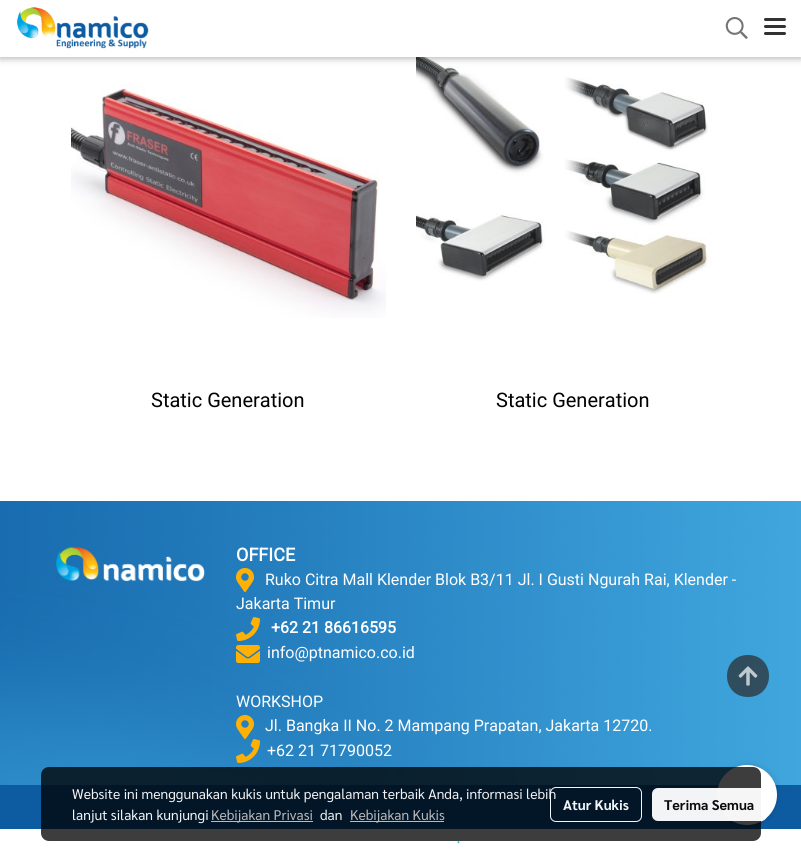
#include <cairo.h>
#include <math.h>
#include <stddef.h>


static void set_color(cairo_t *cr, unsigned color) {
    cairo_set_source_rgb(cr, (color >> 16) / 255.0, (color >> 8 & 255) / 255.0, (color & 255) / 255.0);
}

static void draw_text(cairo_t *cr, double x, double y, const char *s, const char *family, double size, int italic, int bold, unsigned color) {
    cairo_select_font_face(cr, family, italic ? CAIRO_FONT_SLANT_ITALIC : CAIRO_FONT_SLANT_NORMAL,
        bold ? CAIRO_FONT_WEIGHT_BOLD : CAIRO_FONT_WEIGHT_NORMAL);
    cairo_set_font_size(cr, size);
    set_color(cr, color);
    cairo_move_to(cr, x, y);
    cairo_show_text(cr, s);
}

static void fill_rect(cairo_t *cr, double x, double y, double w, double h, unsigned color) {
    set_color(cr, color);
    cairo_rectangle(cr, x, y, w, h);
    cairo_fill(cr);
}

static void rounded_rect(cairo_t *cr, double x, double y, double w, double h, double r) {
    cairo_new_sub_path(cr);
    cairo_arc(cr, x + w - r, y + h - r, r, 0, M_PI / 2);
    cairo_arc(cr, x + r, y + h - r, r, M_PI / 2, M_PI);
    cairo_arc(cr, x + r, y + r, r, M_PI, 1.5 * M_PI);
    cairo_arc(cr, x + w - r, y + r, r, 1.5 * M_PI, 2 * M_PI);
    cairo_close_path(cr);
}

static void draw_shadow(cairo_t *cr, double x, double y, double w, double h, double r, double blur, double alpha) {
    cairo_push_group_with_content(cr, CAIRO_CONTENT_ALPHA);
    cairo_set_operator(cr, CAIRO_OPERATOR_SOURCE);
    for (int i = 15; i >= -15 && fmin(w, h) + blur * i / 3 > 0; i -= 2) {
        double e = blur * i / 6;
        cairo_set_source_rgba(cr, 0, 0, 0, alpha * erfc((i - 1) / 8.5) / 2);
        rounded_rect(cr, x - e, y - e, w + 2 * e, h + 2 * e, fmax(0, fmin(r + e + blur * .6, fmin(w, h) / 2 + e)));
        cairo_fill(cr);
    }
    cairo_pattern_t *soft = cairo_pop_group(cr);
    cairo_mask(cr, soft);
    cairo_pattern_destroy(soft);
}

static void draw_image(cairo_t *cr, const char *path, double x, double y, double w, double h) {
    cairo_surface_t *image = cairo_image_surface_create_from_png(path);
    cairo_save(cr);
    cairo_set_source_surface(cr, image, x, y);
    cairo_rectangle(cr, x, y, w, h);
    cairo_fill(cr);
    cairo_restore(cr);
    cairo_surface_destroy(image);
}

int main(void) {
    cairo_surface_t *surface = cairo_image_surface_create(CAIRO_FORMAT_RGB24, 801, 849);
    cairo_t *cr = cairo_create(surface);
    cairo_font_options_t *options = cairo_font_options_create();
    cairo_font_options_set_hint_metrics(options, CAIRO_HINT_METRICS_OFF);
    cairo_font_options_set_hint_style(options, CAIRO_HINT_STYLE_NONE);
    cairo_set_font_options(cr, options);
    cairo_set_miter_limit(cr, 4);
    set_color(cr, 0xFFFFFF);
    cairo_paint(cr);
    draw_image(cr, "assets/img4.png", 416, 57, 296, 237);
    set_color(cr, 0x000000);
    draw_shadow(cr, 0, 2, 801, 57, 0, 5, 0.12);
    draw_shadow(cr, 0, 2, 801, 57, 0, 2.5, 0.16);
    fill_rect(cr, 0, 0, 801, 57, 0xFFFFFF);
    draw_image(cr, "assets/img1.png", 16, 7, 133, 42);
    draw_image(cr, "assets/img2.png", 725, 17, 23, 22);
    set_color(cr, 0x323232);
    rounded_rect(cr, 764, 25, 22, 3, 1.5);
    cairo_fill(cr);
    rounded_rect(cr, 764, 18, 22, 3, 1.5);
    cairo_fill(cr);
    rounded_rect(cr, 764, 32, 22, 3, 1.5);
    cairo_fill(cr);
    draw_image(cr, "assets/img3.png", 71, 83, 315, 235);
    draw_text(cr, 151, 407, "Static Generation", "Roboto", 20, 0, 0, 0x000000);
    draw_text(cr, 496, 407, "Static Generation", "Roboto", 20, 0, 0, 0x000000);
    draw_image(cr, "assets/img5.png", 0, 501, 801, 284);
    draw_image(cr, "assets/img6.png", 56, 546, 149, 36);
    draw_text(cr, 236, 561, "OFFICE", "Roboto", 18, 0, 1, 0xFFFFFF);
    draw_image(cr, "assets/img7.png", 236, 568, 18, 24);
    draw_text(cr, 265, 585, "Ruko Citra Mall Klender Blok B3/11 Jl. I Gusti Ngurah Rai, Klender -", "Roboto", 16, 0, 0, 0xFFFFFF);
    draw_text(cr, 236, 609, "Jakarta Timur", "Roboto", 16, 0, 0, 0xFFFFFF);
    draw_image(cr, "assets/img8.png", 236, 617, 24, 24);
    draw_text(cr, 271, 633, "+62 21 86616595", "Roboto", 16, 0, 1, 0xFFFFFF);
    draw_image(cr, "assets/img9.png", 236, 645, 24, 18);
    draw_text(cr, 267, 658, "info@ptnamico.co.id", "Roboto", 16, 0, 0, 0xFFFFFF);
    draw_text(cr, 236, 707, "WORKSHOP", "Roboto", 16, 0, 0, 0xFFFFFF);
    draw_image(cr, "assets/img10.png", 236, 715, 18, 24);
    draw_text(cr, 265, 731, "Jl. Bangka II No. 2 Mampang Prapatan, Jakarta 12720.", "Roboto", 16, 0, 0, 0xFFFFFF);
    draw_image(cr, "assets/img11.png", 236, 739, 24, 24);
    draw_text(cr, 267, 756, "+62 21 71790052", "Roboto", 16, 0, 0, 0xFFFFFF);
    fill_rect(cr, 0, 785, 801, 44, 0x0D5CA2);
    draw_text(cr, 457, 843, ".", "Liberation Serif", 12, 0, 1, 0x28BEE3);
    cairo_set_source_rgba(cr, 0.169, 0.165, 0.165, 0.7);
    cairo_new_path(cr);
    cairo_move_to(cr, 748, 655);
    cairo_curve_to(cr, 720, 655, 720, 697, 748, 697);
    cairo_curve_to(cr, 776, 697, 776, 655, 748, 655);
    cairo_close_path(cr);
    cairo_fill(cr);
    draw_image(cr, "assets/img12.png", 738, 666, 20, 20);
    set_color(cr, 0x000000);
    draw_shadow(cr, 717, 765, 60, 60, 30, 3.5, 0.14);
    set_color(cr, 0xFFFFFF);
    cairo_arc(cr, 747, 795, 30, 0, 2 * M_PI);
    cairo_fill(cr);
    cairo_set_source_rgba(cr, 0, 0, 0, 0.76);
    rounded_rect(cr, 41, 767, 720, 74, 8);
    cairo_fill(cr);
    draw_text(cr, 72, 799, "Website ini menggunakan kukis untuk pengalaman terbaik Anda, informasi lebih", "Sarabun", 14, 0, 0, 0xF2F3F4);
    draw_text(cr, 72, 820, "lanjut silakan kunjungi", "Sarabun", 14, 0, 0, 0xF3F7FA);
    fill_rect(cr, 211, 821, 102, 1, 0xB9BDC0);
    draw_text(cr, 211, 820, "Kebijakan Privasi", "Sarabun", 14, 0, 0, 0xB9B9BA);
    draw_text(cr, 320, 820, "dan", "Sarabun", 14, 0, 0, 0xF2F3F4);
    fill_rect(cr, 350, 821, 94, 1, 0xB9BDC0);
    draw_text(cr, 350, 820, "Kebijakan Kukis", "Sarabun", 14, 0, 0, 0xB9B9BA);
    rounded_rect(cr, 550.5, 787.5, 91, 34, 5.5);
    set_color(cr, 0xF3F7FA);
    cairo_set_line_width(cr, 1);
    cairo_stroke(cr);
    draw_text(cr, 563, 810, "Atur Kukis", "Sarabun", 14, 0, 1, 0xF3F7FA);
    cairo_set_source_rgba(cr, 1, 1, 1, 0.95);
    rounded_rect(cr, 652, 788, 115, 33, 6);
    cairo_fill(cr);
    draw_text(cr, 664, 810, "Terima Semua", "Sarabun", 14, 0, 1, 0x0C0C0C);
    cairo_surface_write_to_png(surface, "output.png");
    cairo_font_options_destroy(options);
    cairo_destroy(cr);
    cairo_surface_destroy(surface);
    return 0;
}
